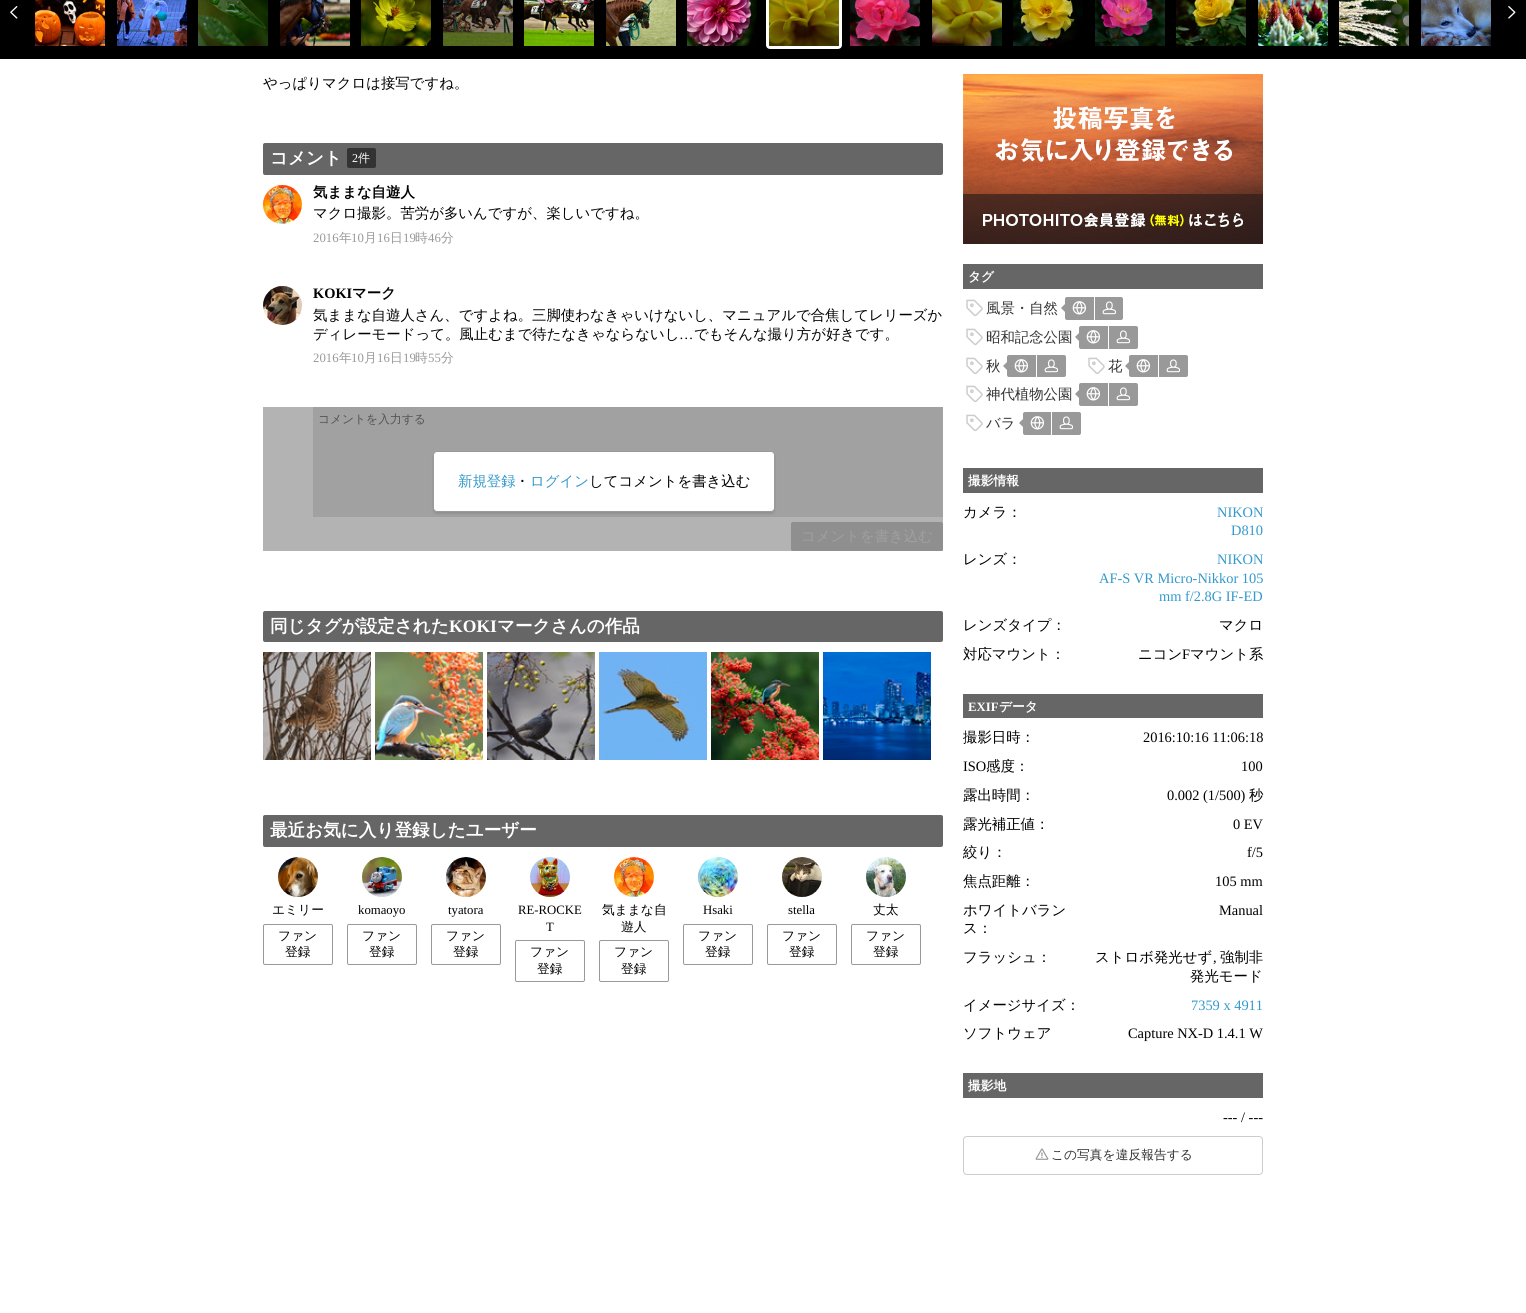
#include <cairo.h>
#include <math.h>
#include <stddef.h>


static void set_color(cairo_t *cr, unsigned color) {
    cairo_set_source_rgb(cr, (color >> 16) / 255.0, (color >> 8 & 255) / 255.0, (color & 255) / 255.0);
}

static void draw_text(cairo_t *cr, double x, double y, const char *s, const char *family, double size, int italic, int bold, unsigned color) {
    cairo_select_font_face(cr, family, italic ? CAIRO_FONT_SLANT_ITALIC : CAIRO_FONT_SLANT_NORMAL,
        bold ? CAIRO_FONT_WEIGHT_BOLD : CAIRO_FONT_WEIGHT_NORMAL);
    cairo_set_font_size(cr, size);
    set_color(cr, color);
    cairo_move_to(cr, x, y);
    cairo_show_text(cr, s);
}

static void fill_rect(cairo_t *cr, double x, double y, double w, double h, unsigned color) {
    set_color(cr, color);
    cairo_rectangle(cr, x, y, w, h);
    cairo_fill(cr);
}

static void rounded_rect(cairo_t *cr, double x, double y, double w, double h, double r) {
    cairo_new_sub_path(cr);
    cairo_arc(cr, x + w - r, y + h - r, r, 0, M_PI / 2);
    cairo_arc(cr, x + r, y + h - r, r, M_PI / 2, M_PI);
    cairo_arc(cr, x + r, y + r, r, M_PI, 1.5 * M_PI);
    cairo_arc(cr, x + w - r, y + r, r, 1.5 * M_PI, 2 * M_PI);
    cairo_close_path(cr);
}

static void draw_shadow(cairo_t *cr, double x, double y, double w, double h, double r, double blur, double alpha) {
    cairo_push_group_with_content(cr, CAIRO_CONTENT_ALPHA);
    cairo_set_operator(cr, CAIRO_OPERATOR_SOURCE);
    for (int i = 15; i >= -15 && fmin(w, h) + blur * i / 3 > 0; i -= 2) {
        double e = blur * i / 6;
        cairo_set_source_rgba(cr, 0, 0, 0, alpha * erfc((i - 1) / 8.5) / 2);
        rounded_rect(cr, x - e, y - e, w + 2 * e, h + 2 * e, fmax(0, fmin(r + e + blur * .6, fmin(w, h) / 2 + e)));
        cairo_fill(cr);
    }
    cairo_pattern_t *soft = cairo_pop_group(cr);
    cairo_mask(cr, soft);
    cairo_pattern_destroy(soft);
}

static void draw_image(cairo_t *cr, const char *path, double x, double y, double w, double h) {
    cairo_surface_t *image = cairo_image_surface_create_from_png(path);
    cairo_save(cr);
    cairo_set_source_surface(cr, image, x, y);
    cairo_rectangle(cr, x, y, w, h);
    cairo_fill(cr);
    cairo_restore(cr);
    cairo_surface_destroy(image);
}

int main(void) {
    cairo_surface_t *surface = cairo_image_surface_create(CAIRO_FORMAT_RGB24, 1526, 1313);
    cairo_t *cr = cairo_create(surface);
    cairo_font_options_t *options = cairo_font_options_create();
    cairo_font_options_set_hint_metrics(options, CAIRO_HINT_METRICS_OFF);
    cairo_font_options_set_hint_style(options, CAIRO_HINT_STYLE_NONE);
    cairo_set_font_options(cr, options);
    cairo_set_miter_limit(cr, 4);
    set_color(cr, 0xFFFFFF);
    cairo_paint(cr);
    fill_rect(cr, 263, 407, 680, 144, 0xB3B3B3);
    fill_rect(cr, 0, 0, 1526, 59, 0x000000);
    draw_image(cr, "assets/img1.png", 10, 6, 8, 13);
    draw_image(cr, "assets/img2.png", 35, 0, 70, 46);
    draw_image(cr, "assets/img3.png", 117, 0, 70, 46);
    draw_image(cr, "assets/img4.png", 198, 0, 70, 46);
    draw_image(cr, "assets/img5.png", 280, 0, 70, 46);
    draw_image(cr, "assets/img6.png", 361, 0, 70, 46);
    draw_image(cr, "assets/img7.png", 443, 0, 70, 46);
    draw_image(cr, "assets/img8.png", 524, 0, 70, 46);
    draw_image(cr, "assets/img9.png", 606, 0, 70, 46);
    draw_image(cr, "assets/img10.png", 687, 0, 70, 46);
    rounded_rect(cr, 767.5, -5.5, 73, 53, 2.5);
    set_color(cr, 0xFFFFFF);
    cairo_set_line_width(cr, 3);
    cairo_stroke(cr);
    draw_image(cr, "assets/img11.png", 769, 0, 70, 46);
    draw_image(cr, "assets/img12.png", 850, 0, 70, 46);
    draw_image(cr, "assets/img13.png", 932, 0, 70, 46);
    draw_image(cr, "assets/img14.png", 1013, 0, 70, 46);
    draw_image(cr, "assets/img15.png", 1095, 0, 70, 46);
    draw_image(cr, "assets/img16.png", 1176, 0, 70, 46);
    draw_image(cr, "assets/img17.png", 1258, 0, 70, 46);
    draw_image(cr, "assets/img18.png", 1339, 0, 70, 46);
    draw_image(cr, "assets/img19.png", 1421, 0, 70, 46);
    draw_image(cr, "assets/img20.png", 1508, 6, 8, 13);
    draw_text(cr, 263, 88, "やっぱりマクロは接写ですね。", "WenQuanYi Zen Hei Medium", 14.4, 0, 0, 0x000000);
    set_color(cr, 0x666666);
    rounded_rect(cr, 263, 143, 680, 32, 2);
    cairo_fill(cr);
    draw_text(cr, 270, 164, "コメント", "WenQuanYi Zen Hei", 17.6, 0, 1, 0xFFFFFF);
    set_color(cr, 0x333333);
    rounded_rect(cr, 347, 148, 29, 20, 2);
    cairo_fill(cr);
    draw_text(cr, 352, 162, "2", "Liberation Serif", 12, 0, 0, 0xFFFFFF);
    draw_text(cr, 358, 162, "件", "WenQuanYi Zen Hei Medium", 12, 0, 0, 0xFFFFFF);
    draw_image(cr, "assets/img21.png", 263, 185, 39, 39);
    draw_text(cr, 313, 197, "気ままな自遊人", "WenQuanYi Zen Hei", 14.4, 0, 1, 0x000000);
    draw_text(cr, 313, 218, "マクロ撮影。苦労が多いんですが、楽しいですね。", "WenQuanYi Zen Hei Medium", 14.4, 0, 0, 0x000000);
    draw_text(cr, 313, 242, "2016", "Liberation Serif", 12.75, 0, 0, 0x999999);
    draw_text(cr, 339, 242, "年", "WenQuanYi Zen Hei Medium", 12.75, 0, 0, 0x999999);
    draw_text(cr, 351, 242, "10", "Liberation Serif", 12.75, 0, 0, 0x999999);
    draw_text(cr, 364, 242, "月", "WenQuanYi Zen Hei Medium", 12.75, 0, 0, 0x999999);
    draw_text(cr, 377, 242, "16", "Liberation Serif", 12.75, 0, 0, 0x999999);
    draw_text(cr, 390, 242, "日", "WenQuanYi Zen Hei Medium", 12.75, 0, 0, 0x999999);
    draw_text(cr, 403, 242, "19", "Liberation Serif", 12.75, 0, 0, 0x999999);
    draw_text(cr, 415, 242, "時", "WenQuanYi Zen Hei Medium", 12.75, 0, 0, 0x999999);
    draw_text(cr, 428, 242, "46", "Liberation Serif", 12.75, 0, 0, 0x999999);
    draw_text(cr, 441, 242, "分", "WenQuanYi Zen Hei Medium", 12.75, 0, 0, 0x999999);
    draw_image(cr, "assets/img22.png", 263, 286, 39, 39);
    draw_text(cr, 313, 298, "KOKI", "Liberation Serif", 14.4, 0, 1, 0x000000);
    draw_text(cr, 352, 298, "マーク", "WenQuanYi Zen Hei", 14.4, 0, 1, 0x000000);
    draw_text(cr, 313, 320, "気ままな自遊人さん、ですよね。三脚使わなきゃいけないし、マニュアルで合焦してレリーズか", "WenQuanYi Zen Hei Medium", 14.4, 0, 0, 0x000000);
    draw_text(cr, 313, 339, "ディレーモードって。風止むまで待たなきゃならないし", "WenQuanYi Zen Hei Medium", 14.4, 0, 0, 0x000000);
    draw_text(cr, 679, 339, "…", "Liberation Serif", 14.4, 0, 0, 0x000000);
    draw_text(cr, 694, 339, "でもそんな撮り方が好きです。", "WenQuanYi Zen Hei Medium", 14.4, 0, 0, 0x000000);
    draw_text(cr, 313, 362, "2016", "Liberation Serif", 12.75, 0, 0, 0x999999);
    draw_text(cr, 339, 362, "年", "WenQuanYi Zen Hei Medium", 12.75, 0, 0, 0x999999);
    draw_text(cr, 351, 362, "10", "Liberation Serif", 12.75, 0, 0, 0x999999);
    draw_text(cr, 364, 362, "月", "WenQuanYi Zen Hei Medium", 12.75, 0, 0, 0x999999);
    draw_text(cr, 377, 362, "16", "Liberation Serif", 12.75, 0, 0, 0x999999);
    draw_text(cr, 390, 362, "日", "WenQuanYi Zen Hei Medium", 12.75, 0, 0, 0x999999);
    draw_text(cr, 403, 362, "19", "Liberation Serif", 12.75, 0, 0, 0x999999);
    draw_text(cr, 415, 362, "時", "WenQuanYi Zen Hei Medium", 12.75, 0, 0, 0x999999);
    draw_text(cr, 428, 362, "55", "Liberation Serif", 12.75, 0, 0, 0x999999);
    draw_text(cr, 441, 362, "分", "WenQuanYi Zen Hei Medium", 12.75, 0, 0, 0x999999);
    fill_rect(cr, 313, 407, 630, 110, 0xA1A1A1);
    draw_text(cr, 318, 423, "コメントを入力する", "WenQuanYi Zen Hei Medium", 11.75, 0, 0, 0x525252);
    set_color(cr, 0x000000);
    draw_shadow(cr, 433, 453, 342, 61, 4, 1, 0.1);
    set_color(cr, 0xFFFFFF);
    rounded_rect(cr, 433.5, 451.5, 341, 60, 3.5);
    cairo_fill_preserve(cr);
    set_color(cr, 0x999999);
    cairo_set_line_width(cr, 1);
    cairo_stroke(cr);
    draw_text(cr, 458, 486, "新規登録", "WenQuanYi Zen Hei Medium", 14.4, 0, 0, 0x3399CC);
    draw_text(cr, 515, 486, "・", "WenQuanYi Zen Hei Medium", 14.4, 0, 0, 0x000000);
    draw_text(cr, 530, 486, "ログイン", "WenQuanYi Zen Hei Medium", 14.4, 0, 0, 0x3399CC);
    draw_text(cr, 589, 486, "してコメントを書き込む", "WenQuanYi Zen Hei Medium", 14.4, 0, 0, 0x000000);
    set_color(cr, 0x8F8F8F);
    rounded_rect(cr, 791, 522, 152, 29, 2);
    cairo_fill(cr);
    draw_text(cr, 801, 541, "コメントを書き込む", "WenQuanYi Zen Hei Medium", 14.4, 0, 0, 0xA0A0A0);
    set_color(cr, 0x666666);
    rounded_rect(cr, 263, 611, 680, 31, 2);
    cairo_fill(cr);
    draw_text(cr, 270, 632, "同じタグが設定された", "WenQuanYi Zen Hei", 17.6, 0, 1, 0xFFFFFF);
    draw_text(cr, 449, 632, "KOKI", "Liberation Serif", 17.6, 0, 1, 0xFFFFFF);
    draw_text(cr, 497, 632, "マークさんの作品", "WenQuanYi Zen Hei", 17.6, 0, 1, 0xFFFFFF);
    draw_image(cr, "assets/img23.png", 263, 652, 108, 108);
    draw_image(cr, "assets/img24.png", 375, 652, 108, 108);
    draw_image(cr, "assets/img25.png", 487, 652, 108, 108);
    draw_image(cr, "assets/img26.png", 599, 652, 108, 108);
    draw_image(cr, "assets/img27.png", 711, 652, 108, 108);
    draw_image(cr, "assets/img28.png", 823, 652, 108, 108);
    set_color(cr, 0x666666);
    rounded_rect(cr, 263, 815, 680, 32, 2);
    cairo_fill(cr);
    draw_text(cr, 270, 836, "最近お気に入り登録したユーザー", "WenQuanYi Zen Hei", 17.6, 0, 1, 0xFFFFFF);
    draw_image(cr, "assets/img29.png", 278, 857, 40, 40);
    draw_text(cr, 272, 914, "エミリー", "WenQuanYi Zen Hei Medium", 12.75, 0, 0, 0x000000);
    rounded_rect(cr, 263.5, 924.5, 69, 40, 1.5);
    set_color(cr, 0x999999);
    cairo_stroke(cr);
    draw_text(cr, 278, 940, "ファン", "WenQuanYi Zen Hei Medium", 12.75, 0, 0, 0x000000);
    draw_text(cr, 285, 956, "登録", "WenQuanYi Zen Hei Medium", 12.75, 0, 0, 0x000000);
    draw_image(cr, "assets/img30.png", 362, 857, 40, 40);
    draw_text(cr, 358, 914, "komaoyo", "Liberation Serif", 12.75, 0, 0, 0x000000);
    rounded_rect(cr, 347.5, 924.5, 69, 40, 1.5);
    set_color(cr, 0x999999);
    cairo_stroke(cr);
    draw_text(cr, 362, 940, "ファン", "WenQuanYi Zen Hei Medium", 12.75, 0, 0, 0x000000);
    draw_text(cr, 369, 956, "登録", "WenQuanYi Zen Hei Medium", 12.75, 0, 0, 0x000000);
    draw_image(cr, "assets/img31.png", 446, 857, 40, 40);
    draw_text(cr, 448, 914, "tyatora", "Liberation Serif", 12.75, 0, 0, 0x000000);
    rounded_rect(cr, 431.5, 924.5, 69, 40, 1.5);
    set_color(cr, 0x999999);
    cairo_stroke(cr);
    draw_text(cr, 446, 940, "ファン", "WenQuanYi Zen Hei Medium", 12.75, 0, 0, 0x000000);
    draw_text(cr, 453, 956, "登録", "WenQuanYi Zen Hei Medium", 12.75, 0, 0, 0x000000);
    draw_image(cr, "assets/img32.png", 530, 857, 40, 40);
    draw_text(cr, 518, 914, "RE-ROCKE", "Liberation Serif", 12.75, 0, 0, 0x000000);
    draw_text(cr, 546, 931, "T", "Liberation Serif", 12.75, 0, 0, 0x000000);
    rounded_rect(cr, 515.5, 940.5, 69, 41, 1.5);
    set_color(cr, 0x999999);
    cairo_stroke(cr);
    draw_text(cr, 530, 956, "ファン", "WenQuanYi Zen Hei Medium", 12.75, 0, 0, 0x000000);
    draw_text(cr, 537, 973, "登録", "WenQuanYi Zen Hei Medium", 12.75, 0, 0, 0x000000);
    draw_image(cr, "assets/img33.png", 614, 857, 40, 40);
    draw_text(cr, 602, 914, "気ままな自", "WenQuanYi Zen Hei Medium", 12.75, 0, 0, 0x000000);
    draw_text(cr, 621, 931, "遊人", "WenQuanYi Zen Hei Medium", 12.75, 0, 0, 0x000000);
    rounded_rect(cr, 599.5, 940.5, 69, 41, 1.5);
    set_color(cr, 0x999999);
    cairo_stroke(cr);
    draw_text(cr, 614, 956, "ファン", "WenQuanYi Zen Hei Medium", 12.75, 0, 0, 0x000000);
    draw_text(cr, 621, 973, "登録", "WenQuanYi Zen Hei Medium", 12.75, 0, 0, 0x000000);
    draw_image(cr, "assets/img34.png", 698, 857, 40, 40);
    draw_text(cr, 703, 914, "Hsaki", "Liberation Serif", 12.75, 0, 0, 0x000000);
    rounded_rect(cr, 683.5, 924.5, 69, 40, 1.5);
    set_color(cr, 0x999999);
    cairo_stroke(cr);
    draw_text(cr, 698, 940, "ファン", "WenQuanYi Zen Hei Medium", 12.75, 0, 0, 0x000000);
    draw_text(cr, 705, 956, "登録", "WenQuanYi Zen Hei Medium", 12.75, 0, 0, 0x000000);
    draw_image(cr, "assets/img35.png", 782, 857, 40, 40);
    draw_text(cr, 788, 914, "stella", "Liberation Serif", 12.75, 0, 0, 0x000000);
    rounded_rect(cr, 767.5, 924.5, 69, 40, 1.5);
    set_color(cr, 0x999999);
    cairo_stroke(cr);
    draw_text(cr, 782, 940, "ファン", "WenQuanYi Zen Hei Medium", 12.75, 0, 0, 0x000000);
    draw_text(cr, 789, 956, "登録", "WenQuanYi Zen Hei Medium", 12.75, 0, 0, 0x000000);
    draw_image(cr, "assets/img36.png", 866, 857, 40, 40);
    draw_text(cr, 873, 914, "丈太", "WenQuanYi Zen Hei Medium", 12.75, 0, 0, 0x000000);
    rounded_rect(cr, 851.5, 924.5, 69, 40, 1.5);
    set_color(cr, 0x999999);
    cairo_stroke(cr);
    draw_text(cr, 866, 940, "ファン", "WenQuanYi Zen Hei Medium", 12.75, 0, 0, 0x000000);
    draw_text(cr, 873, 956, "登録", "WenQuanYi Zen Hei Medium", 12.75, 0, 0, 0x000000);
    draw_image(cr, "assets/img37.png", 963, 74, 300, 170);
    fill_rect(cr, 963, 264, 300, 25, 0x666666);
    draw_text(cr, 968, 281, "タグ", "WenQuanYi Zen Hei", 12.75, 0, 1, 0xFFFFFF);
    draw_image(cr, "assets/img38.png", 966, 299, 17, 18);
    draw_text(cr, 986, 313, "風景・自然", "WenQuanYi Zen Hei Medium", 14.4, 0, 0, 0x333333);
    set_color(cr, 0x999999);
    rounded_rect(cr, 1065, 297, 58, 23, 2);
    cairo_fill(cr);
    cairo_new_path(cr);
    cairo_move_to(cr, 1066, 303);
    cairo_line_to(cr, 1066, 313);
    cairo_line_to(cr, 1061, 308);
    cairo_close_path(cr);
    cairo_fill(cr);
    draw_image(cr, "assets/img39.png", 1072, 301, 14, 14);
    fill_rect(cr, 1094, 297, 1, 23, 0xFFFFFF);
    draw_image(cr, "assets/img40.png", 1102, 301, 14, 14);
    draw_image(cr, "assets/img38.png", 966, 328, 17, 18);
    draw_text(cr, 986, 342, "昭和記念公園", "WenQuanYi Zen Hei Medium", 14.4, 0, 0, 0x333333);
    set_color(cr, 0x999999);
    rounded_rect(cr, 1079, 326, 59, 23, 2);
    cairo_fill(cr);
    cairo_new_path(cr);
    cairo_move_to(cr, 1080, 332);
    cairo_line_to(cr, 1080, 342);
    cairo_line_to(cr, 1075, 337);
    cairo_close_path(cr);
    cairo_fill(cr);
    draw_image(cr, "assets/img39.png", 1086, 330, 14, 14);
    fill_rect(cr, 1108, 326, 1, 23, 0xFFFFFF);
    draw_image(cr, "assets/img40.png", 1116, 330, 14, 14);
    draw_image(cr, "assets/img38.png", 966, 357, 17, 18);
    draw_text(cr, 986, 371, "秋", "WenQuanYi Zen Hei Medium", 14.4, 0, 0, 0x333333);
    set_color(cr, 0x999999);
    rounded_rect(cr, 1007, 355, 59, 22, 2);
    cairo_fill(cr);
    cairo_new_path(cr);
    cairo_move_to(cr, 1008, 361);
    cairo_line_to(cr, 1008, 371);
    cairo_line_to(cr, 1003, 366);
    cairo_close_path(cr);
    cairo_fill(cr);
    draw_image(cr, "assets/img39.png", 1014, 359, 14, 14);
    fill_rect(cr, 1036, 355, 1, 22, 0xFFFFFF);
    draw_image(cr, "assets/img40.png", 1044, 359, 14, 14);
    draw_image(cr, "assets/img38.png", 1088, 357, 17, 18);
    draw_text(cr, 1108, 371, "花", "WenQuanYi Zen Hei Medium", 14.4, 0, 0, 0x333333);
    set_color(cr, 0x999999);
    rounded_rect(cr, 1129, 355, 59, 22, 2);
    cairo_fill(cr);
    cairo_new_path(cr);
    cairo_move_to(cr, 1130, 361);
    cairo_line_to(cr, 1130, 371);
    cairo_line_to(cr, 1125, 366);
    cairo_close_path(cr);
    cairo_fill(cr);
    draw_image(cr, "assets/img39.png", 1136, 359, 14, 14);
    fill_rect(cr, 1158, 355, 1, 22, 0xFFFFFF);
    draw_image(cr, "assets/img40.png", 1166, 359, 14, 14);
    draw_image(cr, "assets/img38.png", 966, 385, 17, 18);
    draw_text(cr, 986, 399, "神代植物公園", "WenQuanYi Zen Hei Medium", 14.4, 0, 0, 0x333333);
    set_color(cr, 0x999999);
    rounded_rect(cr, 1079, 383, 59, 23, 2);
    cairo_fill(cr);
    cairo_new_path(cr);
    cairo_move_to(cr, 1080, 389);
    cairo_line_to(cr, 1080, 399);
    cairo_line_to(cr, 1075, 394);
    cairo_close_path(cr);
    cairo_fill(cr);
    draw_image(cr, "assets/img39.png", 1086, 387, 14, 14);
    fill_rect(cr, 1108, 383, 1, 23, 0xFFFFFF);
    draw_image(cr, "assets/img40.png", 1116, 387, 14, 14);
    draw_image(cr, "assets/img38.png", 966, 414, 17, 18);
    draw_text(cr, 986, 428, "バラ", "WenQuanYi Zen Hei Medium", 14.4, 0, 0, 0x333333);
    set_color(cr, 0x999999);
    rounded_rect(cr, 1023, 412, 58, 23, 2);
    cairo_fill(cr);
    cairo_new_path(cr);
    cairo_move_to(cr, 1024, 418);
    cairo_line_to(cr, 1024, 428);
    cairo_line_to(cr, 1019, 423);
    cairo_close_path(cr);
    cairo_fill(cr);
    draw_image(cr, "assets/img39.png", 1030, 416, 14, 14);
    fill_rect(cr, 1051, 412, 1, 23, 0xFFFFFF);
    draw_image(cr, "assets/img40.png", 1059, 416, 14, 14);
    fill_rect(cr, 963, 468, 300, 25, 0x666666);
    draw_text(cr, 968, 485, "撮影情報", "WenQuanYi Zen Hei", 12.75, 0, 1, 0xFFFFFF);
    draw_text(cr, 963, 517, "カメラ：", "WenQuanYi Zen Hei Medium", 14.4, 0, 0, 0x000000);
    draw_text(cr, 1217, 517, "NIKON", "Liberation Serif", 14.4, 0, 0, 0x3399CC);
    draw_text(cr, 1231, 535, "D810", "Liberation Serif", 14.4, 0, 0, 0x3399CC);
    draw_text(cr, 963, 564, "レンズ：", "WenQuanYi Zen Hei Medium", 14.4, 0, 0, 0x000000);
    draw_text(cr, 1217, 564, "NIKON", "Liberation Serif", 14.4, 0, 0, 0x3399CC);
    draw_text(cr, 1099, 583, "AF-S VR Micro-Nikkor 105", "Liberation Serif", 14.4, 0, 0, 0x3399CC);
    draw_text(cr, 1159, 601, "mm f/2.8G IF-ED", "Liberation Serif", 14.4, 0, 0, 0x3399CC);
    draw_text(cr, 963, 630, "レンズタイプ：", "WenQuanYi Zen Hei Medium", 14.4, 0, 0, 0x000000);
    draw_text(cr, 1219, 630, "マクロ", "WenQuanYi Zen Hei Medium", 14.4, 0, 0, 0x000000);
    draw_text(cr, 963, 659, "対応マウント：", "WenQuanYi Zen Hei Medium", 14.4, 0, 0, 0x000000);
    draw_text(cr, 1138, 659, "ニコン", "WenQuanYi Zen Hei Medium", 14.4, 0, 0, 0x000000);
    draw_text(cr, 1182, 659, "F", "Liberation Serif", 14.4, 0, 0, 0x000000);
    draw_text(cr, 1190, 659, "マウント系", "WenQuanYi Zen Hei Medium", 14.4, 0, 0, 0x000000);
    fill_rect(cr, 963, 694, 300, 24, 0x666666);
    draw_text(cr, 968, 711, "EXIF", "Liberation Serif", 12.75, 0, 1, 0xFFFFFF);
    draw_text(cr, 999, 711, "データ", "WenQuanYi Zen Hei", 12.75, 0, 1, 0xFFFFFF);
    draw_text(cr, 963, 742, "撮影日時：", "WenQuanYi Zen Hei Medium", 14.4, 0, 0, 0x000000);
    draw_text(cr, 1143, 742, "2016:10:16 11:06:18", "Liberation Serif", 14.4, 0, 0, 0x000000);
    draw_text(cr, 963, 771, "ISO", "Liberation Serif", 14.4, 0, 0, 0x000000);
    draw_text(cr, 986, 771, "感度：", "WenQuanYi Zen Hei Medium", 14.4, 0, 0, 0x000000);
    draw_text(cr, 1241, 771, "100", "Liberation Serif", 14.4, 0, 0, 0x000000);
    draw_text(cr, 963, 800, "露出時間：", "WenQuanYi Zen Hei Medium", 14.4, 0, 0, 0x000000);
    draw_text(cr, 1167, 800, "0.002 (1/500)", "Liberation Serif", 14.4, 0, 0, 0x000000);
    draw_text(cr, 1249, 800, "秒", "WenQuanYi Zen Hei Medium", 14.4, 0, 0, 0x000000);
    draw_text(cr, 963, 829, "露光補正値：", "WenQuanYi Zen Hei Medium", 14.4, 0, 0, 0x000000);
    draw_text(cr, 1233, 829, "0 EV", "Liberation Serif", 14.4, 0, 0, 0x000000);
    draw_text(cr, 963, 857, "絞り：", "WenQuanYi Zen Hei Medium", 14.4, 0, 0, 0x000000);
    draw_text(cr, 1247, 857, "f/5", "Liberation Serif", 14.4, 0, 0, 0x000000);
    draw_text(cr, 963, 886, "焦点距離：", "WenQuanYi Zen Hei Medium", 14.4, 0, 0, 0x000000);
    draw_text(cr, 1215, 886, "105 mm", "Liberation Serif", 14.4, 0, 0, 0x000000);
    draw_text(cr, 963, 915, "ホワイトバラン", "WenQuanYi Zen Hei Medium", 14.4, 0, 0, 0x000000);
    draw_text(cr, 963, 933, "ス：", "WenQuanYi Zen Hei Medium", 14.4, 0, 0, 0x000000);
    draw_text(cr, 1219, 915, "Manual", "Liberation Serif", 14.4, 0, 0, 0x000000);
    draw_text(cr, 963, 962, "フラッシュ：", "WenQuanYi Zen Hei Medium", 14.4, 0, 0, 0x000000);
    draw_text(cr, 1095, 962, "ストロボ発光せず", "WenQuanYi Zen Hei Medium", 14.4, 0, 0, 0x000000);
    draw_text(cr, 1213, 962, ",", "Liberation Serif", 14.4, 0, 0, 0x000000);
    draw_text(cr, 1220, 962, "強制非", "WenQuanYi Zen Hei Medium", 14.4, 0, 0, 0x000000);
    draw_text(cr, 1190, 981, "発光モード", "WenQuanYi Zen Hei Medium", 14.4, 0, 0, 0x000000);
    draw_text(cr, 963, 1010, "イメージサイズ：", "WenQuanYi Zen Hei Medium", 14.4, 0, 0, 0x000000);
    draw_text(cr, 1191, 1010, "7359 x 4911", "Liberation Serif", 14.4, 0, 0, 0x3399CC);
    draw_text(cr, 963, 1038, "ソフトウェア", "WenQuanYi Zen Hei Medium", 14.4, 0, 0, 0x000000);
    draw_text(cr, 1128, 1038, "Capture NX-D 1.4.1 W", "Liberation Serif", 14.4, 0, 0, 0x000000);
    fill_rect(cr, 963, 1073, 300, 25, 0x666666);
    draw_text(cr, 968, 1090, "撮影地", "WenQuanYi Zen Hei", 12.75, 0, 1, 0xFFFFFF);
    draw_text(cr, 1223, 1122, "--- / ---", "Liberation Serif", 14.4, 0, 0, 0x000000);
    rounded_rect(cr, 963.5, 1136.5, 299, 38, 3.5);
    set_color(cr, 0xCCCCCC);
    cairo_stroke(cr);
    draw_image(cr, "assets/img41.png", 1035, 1148, 14, 12);
    draw_text(cr, 1051, 1159, "この写真を違反報告する", "WenQuanYi Zen Hei Medium", 12.75, 0, 0, 0x333333);
    cairo_surface_write_to_png(surface, "output.png");
    cairo_font_options_destroy(options);
    cairo_destroy(cr);
    cairo_surface_destroy(surface);
    return 0;
}
